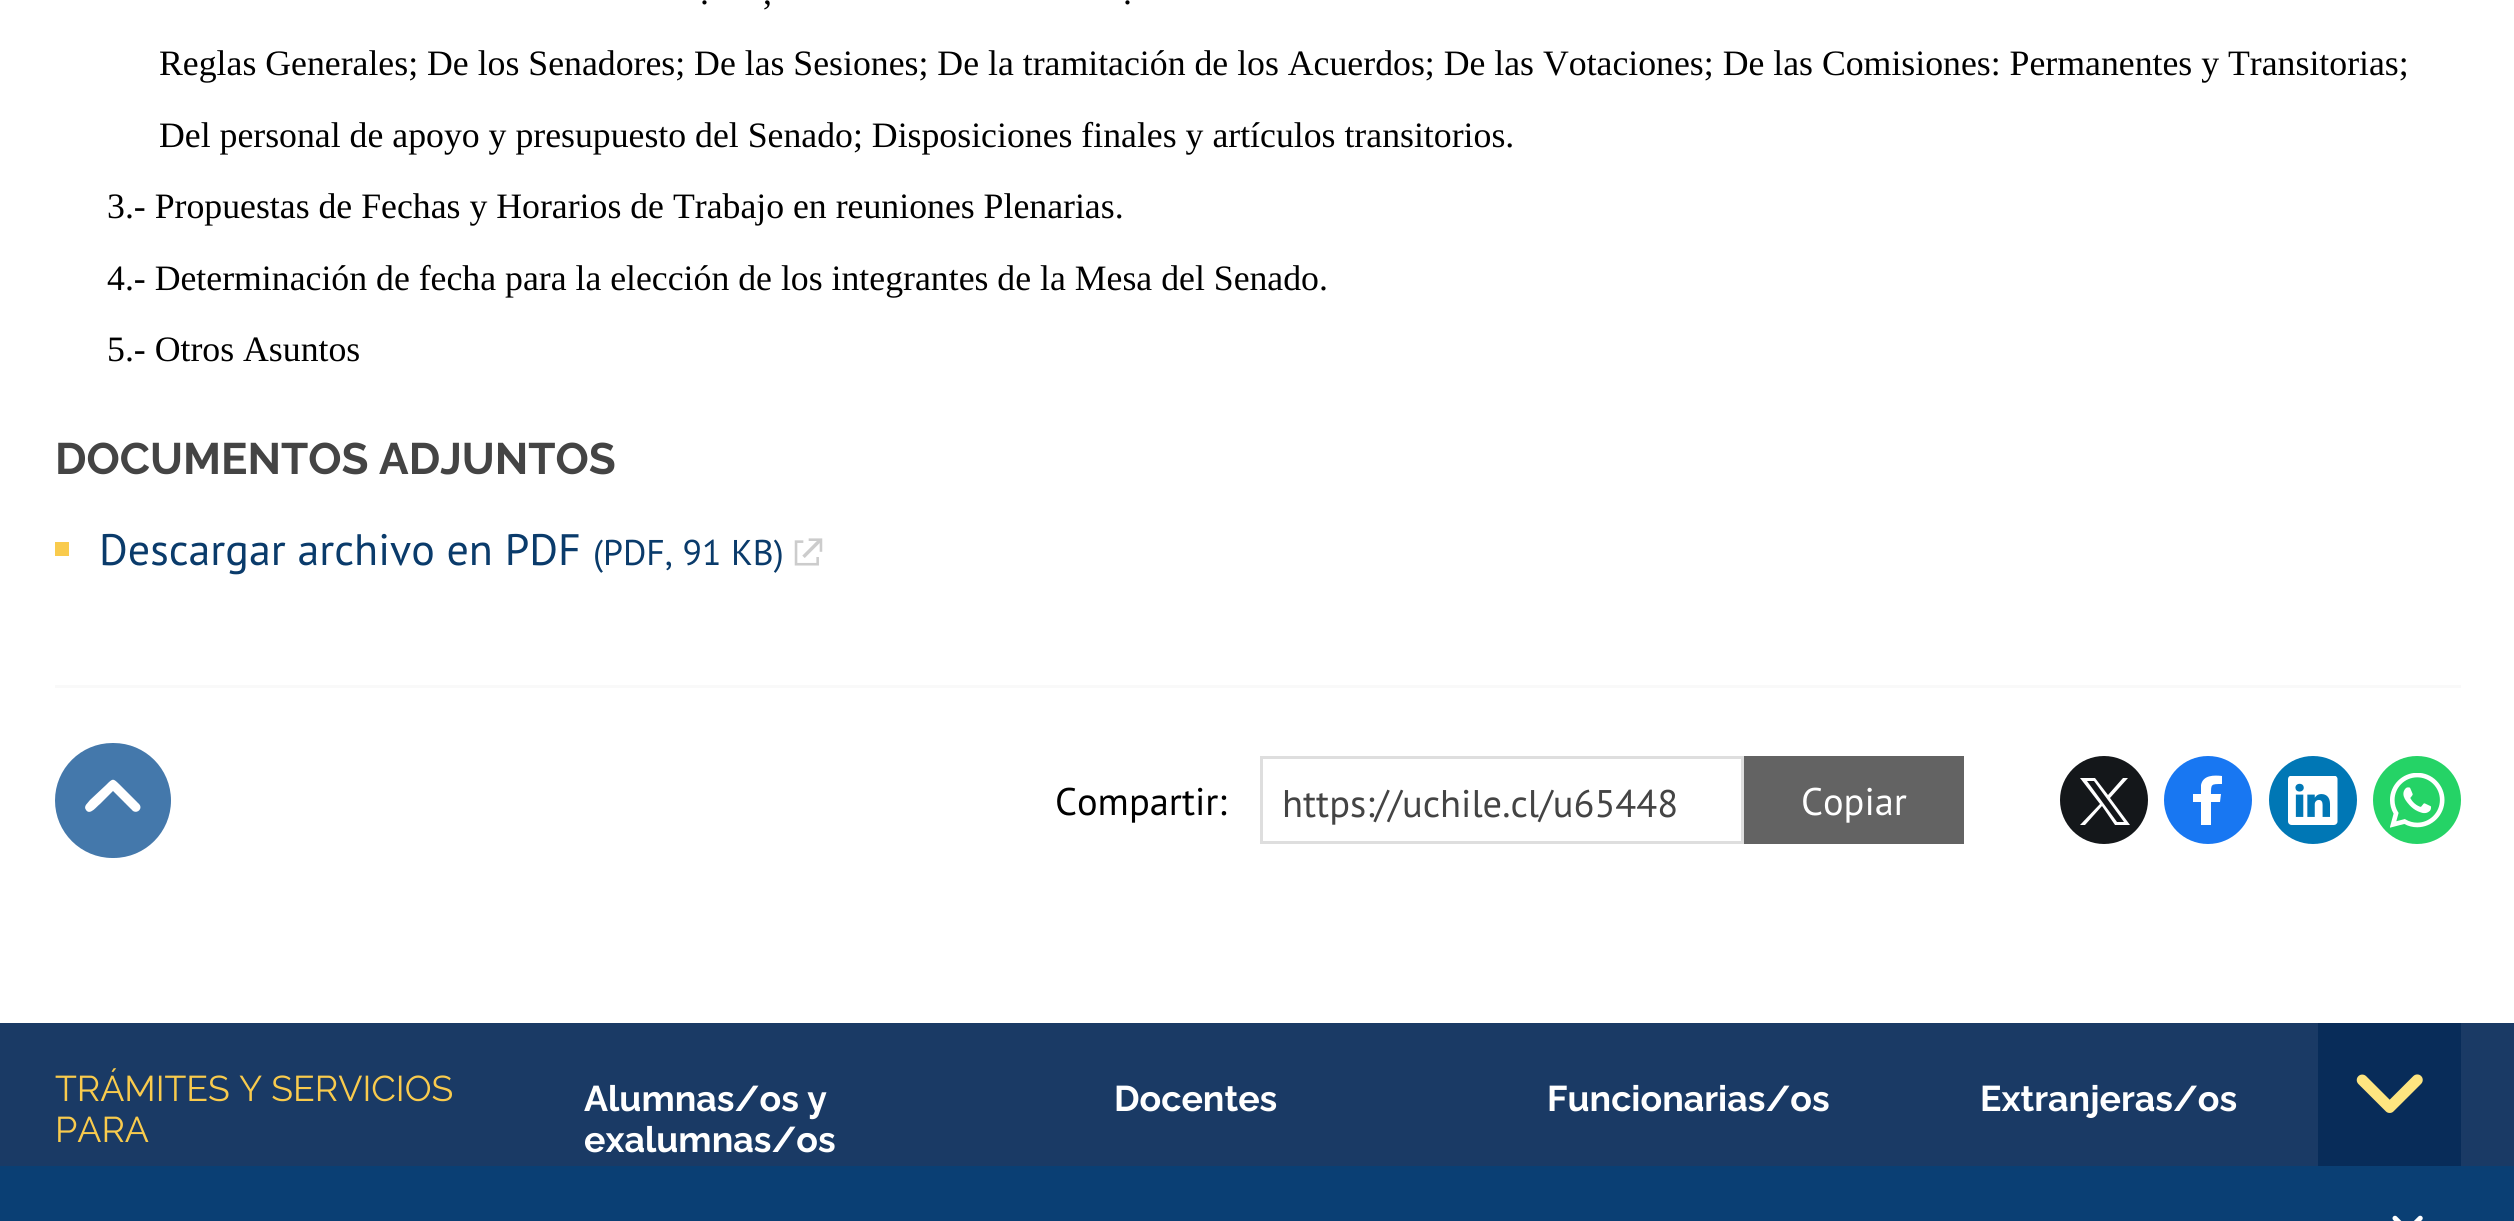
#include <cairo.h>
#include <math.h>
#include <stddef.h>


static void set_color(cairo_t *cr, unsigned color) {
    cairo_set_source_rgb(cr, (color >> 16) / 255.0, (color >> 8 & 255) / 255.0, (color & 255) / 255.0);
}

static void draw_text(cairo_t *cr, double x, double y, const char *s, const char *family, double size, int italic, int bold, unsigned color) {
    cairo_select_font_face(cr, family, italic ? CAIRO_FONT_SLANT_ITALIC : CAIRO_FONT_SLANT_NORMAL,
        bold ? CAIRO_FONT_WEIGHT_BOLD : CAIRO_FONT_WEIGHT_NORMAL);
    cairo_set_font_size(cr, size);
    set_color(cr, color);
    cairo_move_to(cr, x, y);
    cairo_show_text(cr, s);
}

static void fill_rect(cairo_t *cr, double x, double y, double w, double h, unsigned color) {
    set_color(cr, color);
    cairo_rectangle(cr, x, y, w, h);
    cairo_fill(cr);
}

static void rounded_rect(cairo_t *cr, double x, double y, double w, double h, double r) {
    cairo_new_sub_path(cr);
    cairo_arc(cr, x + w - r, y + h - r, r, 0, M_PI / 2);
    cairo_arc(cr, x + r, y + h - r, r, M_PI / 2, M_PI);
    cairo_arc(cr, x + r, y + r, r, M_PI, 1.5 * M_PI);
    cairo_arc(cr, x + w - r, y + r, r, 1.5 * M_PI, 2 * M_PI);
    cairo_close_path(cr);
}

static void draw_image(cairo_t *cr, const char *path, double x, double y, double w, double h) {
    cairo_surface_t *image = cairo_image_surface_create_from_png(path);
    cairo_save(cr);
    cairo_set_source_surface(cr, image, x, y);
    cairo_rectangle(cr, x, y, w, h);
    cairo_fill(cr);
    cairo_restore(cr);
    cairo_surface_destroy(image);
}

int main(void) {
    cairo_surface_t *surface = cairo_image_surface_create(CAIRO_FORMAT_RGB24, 2514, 1221);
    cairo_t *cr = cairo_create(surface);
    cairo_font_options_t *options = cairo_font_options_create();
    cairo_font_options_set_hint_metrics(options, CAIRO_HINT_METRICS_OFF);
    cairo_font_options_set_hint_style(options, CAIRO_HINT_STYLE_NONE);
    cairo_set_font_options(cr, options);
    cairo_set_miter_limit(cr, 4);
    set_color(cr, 0xFFFFFF);
    cairo_paint(cr);
    draw_text(cr, 700, 4, ".", "Liberation Serif", 35.75, 0, 0, 0x000000);
    draw_text(cr, 763, 4, ",", "Liberation Serif", 35.75, 0, 0, 0x000000);
    draw_text(cr, 1123, 4, ".", "Liberation Serif", 35.75, 0, 0, 0x000000);
    draw_text(cr, 159, 75, "Reglas Generales; De los Senadores; De las Sesiones; De la tramitación de los Acuerdos; De las Votaciones; De las Comisiones: Permanentes y Transitorias;", "Liberation Serif", 35.75, 0, 0, 0x000000);
    draw_text(cr, 159, 147, "Del personal de apoyo y presupuesto del Senado; Disposiciones finales y artículos transitorios.", "Liberation Serif", 35.75, 0, 0, 0x000000);
    draw_text(cr, 107, 218, "3.- Propuestas de Fechas y Horarios de Trabajo en reuniones Plenarias.", "Liberation Serif", 35.75, 0, 0, 0x000000);
    draw_text(cr, 107, 290, "4.- Determinación de fecha para la elección de los integrantes de la Mesa del Senado.", "Liberation Serif", 35.75, 0, 0, 0x000000);
    draw_text(cr, 107, 361, "5.- Otros Asuntos", "Liberation Serif", 35.75, 0, 0, 0x000000);
    draw_text(cr, 55, 474, "DOCUMENTOS ADJUNTOS", "Raleway", 44, 0, 1, 0x444444);
    fill_rect(cr, 55, 542, 14, 14, 0xF9CB4D);
    draw_text(cr, 99, 565, "Descargar archivo en PDF", "PT Sans", 44, 0, 0, 0x0A3B6B);
    draw_text(cr, 593, 565, "(PDF, 91 KB)", "PT Sans", 35.75, 0, 0, 0x0A3B6B);
    draw_image(cr, "assets/img1.png", 794, 538, 29, 28);
    fill_rect(cr, 55, 685, 2406, 3, 0xF9F9F9);
    set_color(cr, 0x4478AB);
    rounded_rect(cr, 55, 743, 116, 115, 57.5);
    cairo_fill(cr);
    set_color(cr, 0xFFFFFF);
    cairo_new_path(cr);
    cairo_move_to(cr, 139, 804);
    cairo_line_to(cr, 120, 785);
    cairo_curve_to(cr, 113, 778, 113, 778, 106, 785);
    cairo_line_to(cr, 90, 800);
    cairo_curve_to(cr, 88, 803, 83, 806, 86, 810);
    cairo_curve_to(cr, 90, 816, 97, 806, 100, 804);
    cairo_line_to(cr, 113, 791);
    cairo_line_to(cr, 133, 811);
    cairo_curve_to(cr, 138, 814, 143, 808, 139, 804);
    cairo_close_path(cr);
    cairo_fill(cr);
    draw_text(cr, 1055, 815, "Compartir:", "PT Sans", 38.5, 0, 0, 0x000000);
    cairo_rectangle(cr, 1261.5, 757.5, 481, 85);
    set_color(cr, 0xDEDEDE);
    cairo_set_line_width(cr, 3);
    cairo_stroke(cr);
    draw_text(cr, 1282, 817, "https://uchile.cl/u65448", "PT Sans", 38.5, 0, 0, 0x444444);
    fill_rect(cr, 1744, 756, 220, 88, 0x636363);
    draw_text(cr, 1801, 815, "Copiar", "PT Sans", 38.5, 0, 0, 0xFFFFFF);
    set_color(cr, 0x14171A);
    cairo_new_path(cr);
    cairo_arc(cr, 2104, 800, 44, 0, 2 * M_PI);
    cairo_fill(cr);
    set_color(cr, 0xFFFFFF);
    cairo_new_path(cr);
    cairo_move_to(cr, 2080, 778);
    cairo_line_to(cr, 2100, 804);
    cairo_line_to(cr, 2080, 825);
    cairo_line_to(cr, 2085, 825);
    cairo_line_to(cr, 2102, 806);
    cairo_line_to(cr, 2115, 825);
    cairo_line_to(cr, 2130, 825);
    cairo_line_to(cr, 2110, 798);
    cairo_line_to(cr, 2128, 778);
    cairo_line_to(cr, 2123, 778);
    cairo_line_to(cr, 2108, 795);
    cairo_line_to(cr, 2095, 778);
    cairo_close_path(cr);
    cairo_move_to(cr, 2087, 781);
    cairo_line_to(cr, 2094, 781);
    cairo_line_to(cr, 2124, 822);
    cairo_line_to(cr, 2117, 822);
    cairo_close_path(cr);
    cairo_fill(cr);
    set_color(cr, 0x1877F2);
    cairo_arc(cr, 2208, 800, 44, 0, 2 * M_PI);
    cairo_fill(cr);
    set_color(cr, 0xFFFFFF);
    cairo_set_fill_rule(cr, CAIRO_FILL_RULE_EVEN_ODD);
    cairo_new_path(cr);
    cairo_move_to(cr, 2222, 776);
    cairo_curve_to(cr, 2214, 775, 2203, 775, 2201, 785);
    cairo_line_to(cr, 2201, 794);
    cairo_line_to(cr, 2193, 794);
    cairo_line_to(cr, 2193, 802);
    cairo_line_to(cr, 2201, 802);
    cairo_line_to(cr, 2201, 825);
    cairo_line_to(cr, 2211, 825);
    cairo_line_to(cr, 2211, 802);
    cairo_line_to(cr, 2220, 802);
    cairo_line_to(cr, 2221, 794);
    cairo_line_to(cr, 2211, 794);
    cairo_curve_to(cr, 2211, 784, 2211, 784, 2222, 784);
    cairo_close_path(cr);
    cairo_fill(cr);
    set_color(cr, 0x0077B5);
    cairo_arc(cr, 2313, 800, 44, 0, 2 * M_PI);
    cairo_fill(cr);
    draw_image(cr, "assets/img2.png", 2288, 776, 50, 49);
    set_color(cr, 0x25D366);
    cairo_arc(cr, 2417, 800, 44, 0, 2 * M_PI);
    cairo_fill(cr);
    draw_image(cr, "assets/img3.png", 2390, 773, 55, 55);
    fill_rect(cr, 0, 1166, 2514, 55, 0x0A3F74);
    fill_rect(cr, 0, 1023, 2514, 143, 0x1A3A65);
    draw_text(cr, 55, 1101, "TRÁMITES Y SERVICIOS", "Raleway", 35.75, 0, 0, 0xF9CB4D);
    draw_text(cr, 55, 1142, "PARA", "Raleway", 35.75, 0, 0, 0xF9CB4D);
    draw_text(cr, 584, 1111, "Alumnas/os y", "Raleway", 35.75, 0, 1, 0xFFFFFF);
    draw_text(cr, 584, 1152, "exalumnas/os", "Raleway", 35.75, 0, 1, 0xFFFFFF);
    draw_text(cr, 1114, 1111, "Docentes", "Raleway", 35.75, 0, 1, 0xFFFFFF);
    draw_text(cr, 1547, 1111, "Funcionarias/os", "Raleway", 35.75, 0, 1, 0xFFFFFF);
    draw_text(cr, 1980, 1111, "Extranjeras/os", "Raleway", 35.75, 0, 1, 0xFFFFFF);
    fill_rect(cr, 2318, 1023, 143, 143, 0x082C59);
    draw_image(cr, "assets/img4.png", 2356, 1074, 67, 39);
    draw_image(cr, "assets/img5.png", 2392, 1215, 31, 6);
    cairo_surface_write_to_png(surface, "output.png");
    cairo_font_options_destroy(options);
    cairo_destroy(cr);
    cairo_surface_destroy(surface);
    return 0;
}
